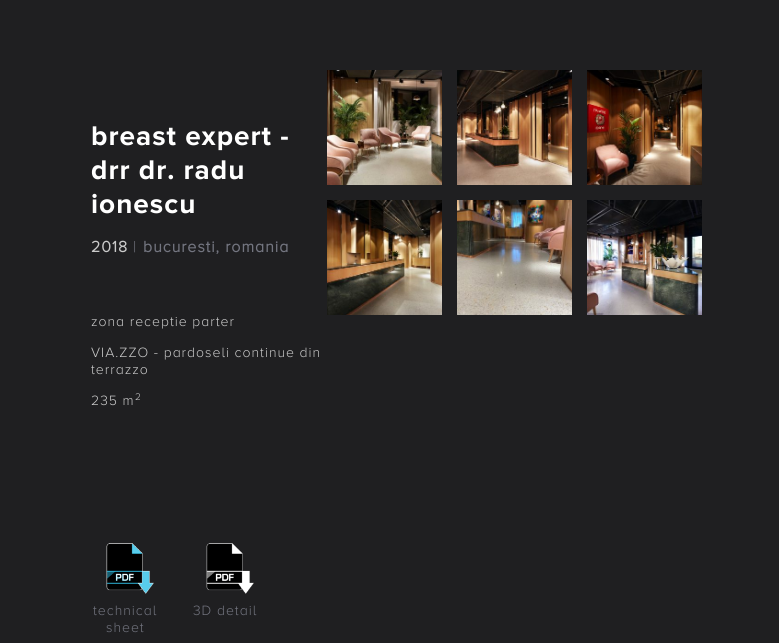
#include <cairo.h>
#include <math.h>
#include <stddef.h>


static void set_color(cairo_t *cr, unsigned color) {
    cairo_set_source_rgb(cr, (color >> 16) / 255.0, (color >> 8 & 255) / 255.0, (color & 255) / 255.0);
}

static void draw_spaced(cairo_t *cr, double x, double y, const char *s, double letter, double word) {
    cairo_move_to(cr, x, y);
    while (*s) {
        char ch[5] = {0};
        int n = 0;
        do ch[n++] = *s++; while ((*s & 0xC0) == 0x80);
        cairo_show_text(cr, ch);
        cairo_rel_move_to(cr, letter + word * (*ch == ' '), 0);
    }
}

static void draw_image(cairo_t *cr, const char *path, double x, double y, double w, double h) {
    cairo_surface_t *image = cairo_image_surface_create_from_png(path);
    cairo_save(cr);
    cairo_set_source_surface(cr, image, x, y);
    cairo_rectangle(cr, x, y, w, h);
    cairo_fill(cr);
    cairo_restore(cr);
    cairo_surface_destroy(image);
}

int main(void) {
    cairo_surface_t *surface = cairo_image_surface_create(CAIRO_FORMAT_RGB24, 779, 643);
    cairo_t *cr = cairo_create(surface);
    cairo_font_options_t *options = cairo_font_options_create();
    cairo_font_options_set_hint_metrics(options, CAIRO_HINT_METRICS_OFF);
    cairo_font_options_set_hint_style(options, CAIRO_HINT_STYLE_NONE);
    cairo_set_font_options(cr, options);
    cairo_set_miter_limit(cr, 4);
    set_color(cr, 0x1F1F21);
    cairo_paint(cr);
    cairo_select_font_face(cr, "Proxima Nova", CAIRO_FONT_SLANT_NORMAL, CAIRO_FONT_WEIGHT_BOLD);
    cairo_set_font_size(cr, 28);
    set_color(cr, 0xFFFFFF);
    draw_spaced(cr, 91, 145, "breast expert -", 1, 0);
    draw_spaced(cr, 91, 179, "drr dr. radu", 1, 0);
    draw_spaced(cr, 91, 213, "ionescu", 1, 0);
    cairo_select_font_face(cr, "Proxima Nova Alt", CAIRO_FONT_SLANT_NORMAL, CAIRO_FONT_WEIGHT_BOLD);
    cairo_set_font_size(cr, 16);
    set_color(cr, 0xCACACA);
    draw_spaced(cr, 91, 252, "2018", 1, 0);
    cairo_select_font_face(cr, "Proxima Nova Alt Light", CAIRO_FONT_SLANT_NORMAL, CAIRO_FONT_WEIGHT_NORMAL);
    set_color(cr, 0x737580);
    draw_spaced(cr, 133, 252, "|", 1, 0);
    cairo_select_font_face(cr, "Proxima Nova Alt", CAIRO_FONT_SLANT_NORMAL, CAIRO_FONT_WEIGHT_BOLD);
    draw_spaced(cr, 143, 252, "bucuresti, romania", 1, 0);
    cairo_select_font_face(cr, "Proxima Nova Alt Light", CAIRO_FONT_SLANT_NORMAL, CAIRO_FONT_WEIGHT_NORMAL);
    cairo_set_font_size(cr, 14);
    set_color(cr, 0xCACACA);
    draw_spaced(cr, 91, 326, "zona receptie parter", 1, 0);
    draw_spaced(cr, 91, 357, "VIA.ZZO - pardoseli continue din", 1, 0);
    draw_spaced(cr, 91, 374, "terrazzo", 1, 0);
    draw_spaced(cr, 91, 405, "235 m", 1, 0);
    cairo_set_font_size(cr, 10);
    draw_spaced(cr, 135, 400, "2", 1, 0);
    draw_image(cr, "assets/img1.png", 106, 543, 48, 51);
    cairo_set_font_size(cr, 14);
    set_color(cr, 0x737580);
    draw_spaced(cr, 93, 615, "technical", 1, 0);
    draw_spaced(cr, 106, 632, "sheet", 1, 0);
    draw_image(cr, "assets/img2.png", 206, 543, 48, 51);
    draw_spaced(cr, 193, 615, "3D detail", 1, 0);
    draw_image(cr, "assets/img3.png", 327, 70, 115, 115);
    draw_image(cr, "assets/img4.png", 457, 70, 115, 115);
    draw_image(cr, "assets/img5.png", 587, 70, 115, 115);
    draw_image(cr, "assets/img6.png", 327, 200, 115, 115);
    draw_image(cr, "assets/img7.png", 457, 200, 115, 115);
    draw_image(cr, "assets/img8.png", 587, 200, 115, 115);
    cairo_surface_write_to_png(surface, "output.png");
    cairo_font_options_destroy(options);
    cairo_destroy(cr);
    cairo_surface_destroy(surface);
    return 0;
}
